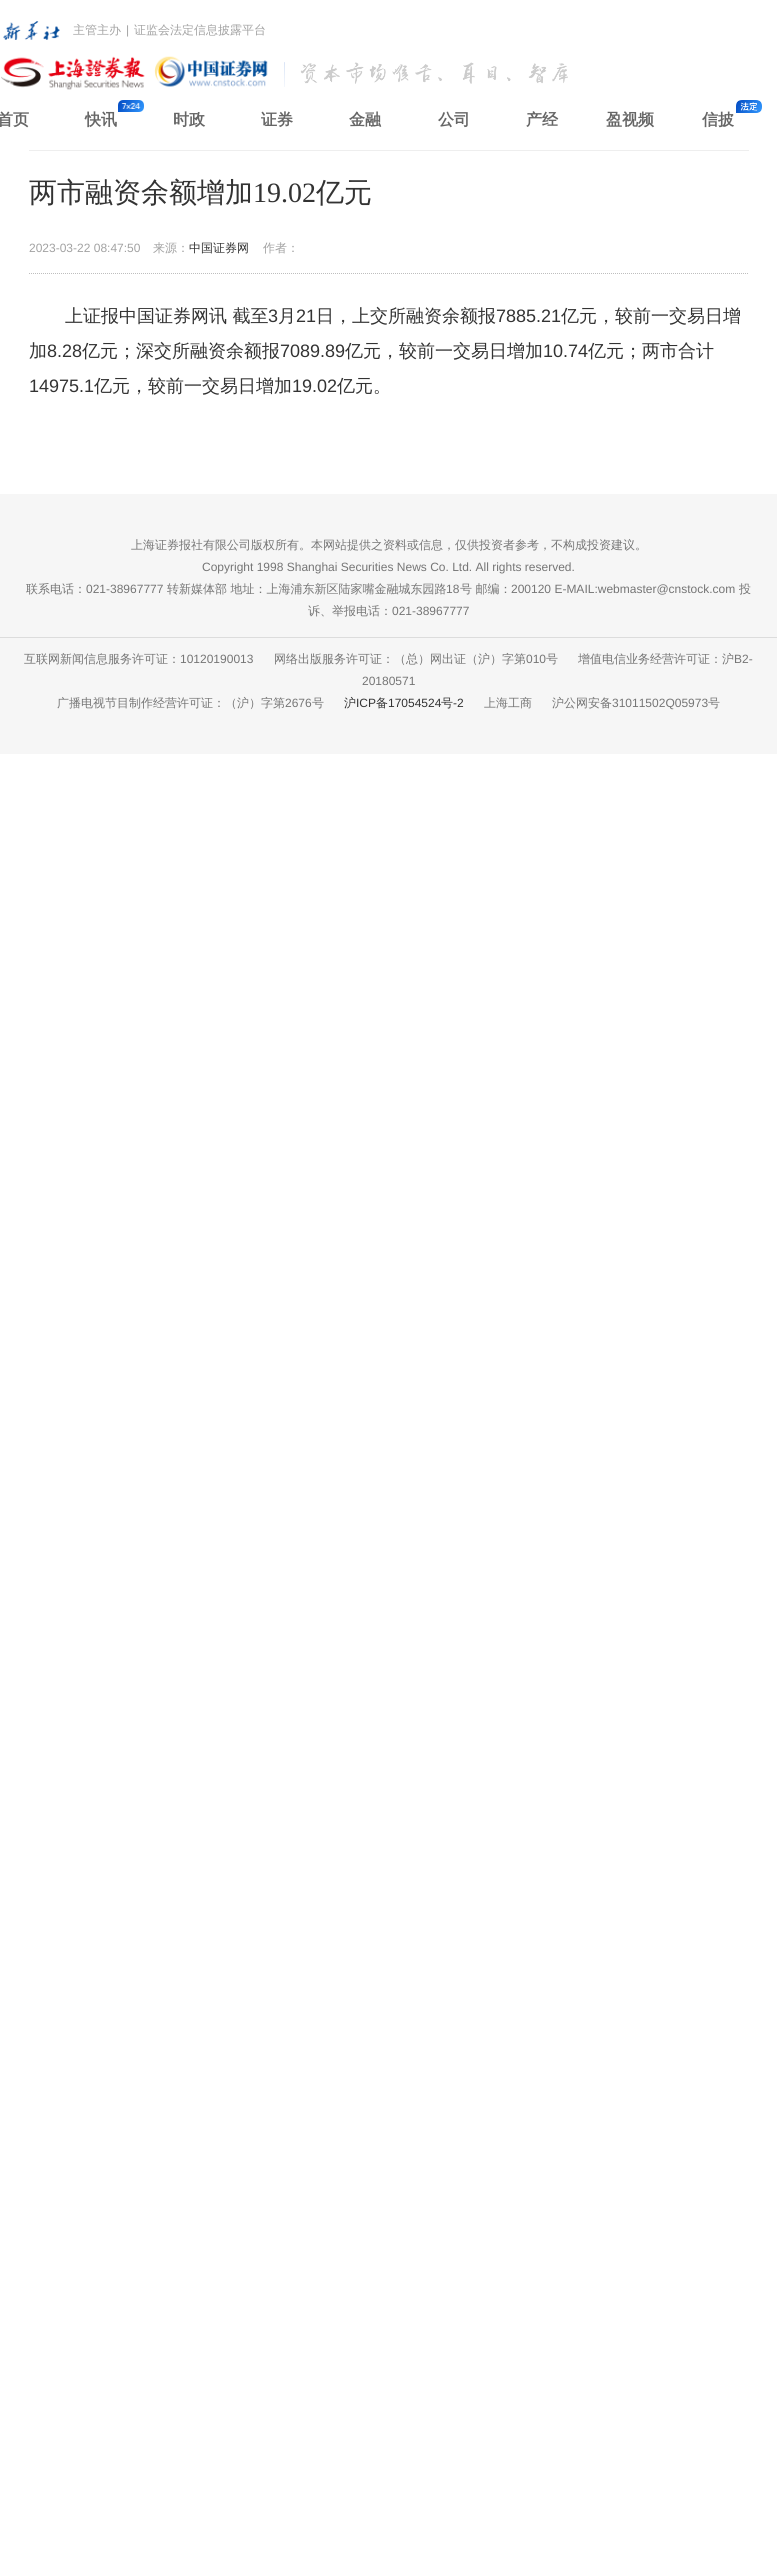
#include <cairo.h>
#include <math.h>
#include <stddef.h>


static void set_color(cairo_t *cr, unsigned color) {
    cairo_set_source_rgb(cr, (color >> 16) / 255.0, (color >> 8 & 255) / 255.0, (color & 255) / 255.0);
}

static void draw_text(cairo_t *cr, double x, double y, const char *s, const char *family, double size, int italic, int bold, unsigned color) {
    cairo_select_font_face(cr, family, italic ? CAIRO_FONT_SLANT_ITALIC : CAIRO_FONT_SLANT_NORMAL,
        bold ? CAIRO_FONT_WEIGHT_BOLD : CAIRO_FONT_WEIGHT_NORMAL);
    cairo_set_font_size(cr, size);
    set_color(cr, color);
    cairo_move_to(cr, x, y);
    cairo_show_text(cr, s);
}

static void fill_rect(cairo_t *cr, double x, double y, double w, double h, unsigned color) {
    set_color(cr, color);
    cairo_rectangle(cr, x, y, w, h);
    cairo_fill(cr);
}

static void draw_image(cairo_t *cr, const char *path, double x, double y, double w, double h) {
    cairo_surface_t *image = cairo_image_surface_create_from_png(path);
    cairo_save(cr);
    cairo_set_source_surface(cr, image, x, y);
    cairo_rectangle(cr, x, y, w, h);
    cairo_fill(cr);
    cairo_restore(cr);
    cairo_surface_destroy(image);
}

int main(void) {
    cairo_surface_t *surface = cairo_image_surface_create(CAIRO_FORMAT_RGB24, 777, 2556);
    cairo_t *cr = cairo_create(surface);
    cairo_font_options_t *options = cairo_font_options_create();
    cairo_font_options_set_hint_metrics(options, CAIRO_HINT_METRICS_OFF);
    cairo_font_options_set_hint_style(options, CAIRO_HINT_STYLE_NONE);
    cairo_set_font_options(cr, options);
    cairo_set_miter_limit(cr, 4);
    set_color(cr, 0xFFFFFF);
    cairo_paint(cr);
    draw_image(cr, "assets/img1.png", 3, 21, 57, 19);
    draw_text(cr, 73, 34, "主管主办", "WenQuanYi Zen Hei Medium", 12, 0, 0, 0xA2A2A2);
    draw_text(cr, 126, 34, "|", "Liberation Sans", 12, 0, 0, 0xA2A2A2);
    draw_text(cr, 134, 34, "证监会法定信息披露平台", "WenQuanYi Zen Hei Medium", 12, 0, 0, 0xA2A2A2);
    draw_image(cr, "assets/img2.png", 1, 56, 267, 34);
    draw_image(cr, "assets/img3.png", 284, 62, 284, 25);
    draw_text(cr, -3, 125, "首页", "WenQuanYi Zen Hei", 16, 0, 1, 0x666666);
    draw_image(cr, "assets/img4.png", 118, 100, 26, 12);
    draw_text(cr, 85, 125, "快讯", "WenQuanYi Zen Hei", 16, 0, 1, 0x666666);
    draw_text(cr, 173, 125, "时政", "WenQuanYi Zen Hei", 16, 0, 1, 0x666666);
    draw_text(cr, 261, 125, "证券", "WenQuanYi Zen Hei", 16, 0, 1, 0x666666);
    draw_text(cr, 349, 125, "金融", "WenQuanYi Zen Hei", 16, 0, 1, 0x666666);
    draw_text(cr, 438, 125, "公司", "WenQuanYi Zen Hei", 16, 0, 1, 0x666666);
    draw_text(cr, 526, 125, "产经", "WenQuanYi Zen Hei", 16, 0, 1, 0x666666);
    draw_text(cr, 606, 125, "盈视频", "WenQuanYi Zen Hei", 16, 0, 1, 0x666666);
    draw_image(cr, "assets/img5.png", 736, 100, 26, 13);
    draw_text(cr, 702, 125, "信披", "WenQuanYi Zen Hei", 16, 0, 1, 0x666666);
    fill_rect(cr, 29, 150, 720, 1, 0xEEEEEE);
    draw_text(cr, 29, 202, "两市融资余额增加", "WenQuanYi Zen Hei Medium", 28, 0, 0, 0x333333);
    draw_text(cr, 253, 202, "19.02", "Liberation Serif", 28, 0, 0, 0x333333);
    draw_text(cr, 316, 202, "亿元", "WenQuanYi Zen Hei Medium", 28, 0, 0, 0x333333);
    draw_text(cr, 29, 252, "2023-03-22 08:47:50", "Liberation Sans", 12, 0, 0, 0xA2A2A2);
    draw_text(cr, 153, 252, "来源：", "WenQuanYi Zen Hei Medium", 12, 0, 0, 0xA2A2A2);
    draw_text(cr, 189, 252, "中国证券网", "WenQuanYi Zen Hei Medium", 12, 0, 0, 0x333333);
    draw_text(cr, 263, 252, "作者：", "WenQuanYi Zen Hei Medium", 12, 0, 0, 0xA2A2A2);
    cairo_new_path(cr);
    cairo_move_to(cr, 29, 273.5);
    cairo_line_to(cr, 749, 273.5);
    set_color(cr, 0xBEBEBE);
    cairo_set_line_width(cr, 1);
    cairo_set_dash(cr, (double[]){1, 1}, 2, 0);
    cairo_stroke(cr);
    draw_text(cr, 65, 322, "上证报中国证券网讯 截至", "WenQuanYi Zen Hei Medium", 18, 0, 0, 0x333333);
    draw_text(cr, 268, 322, "3", "Liberation Sans", 18, 0, 0, 0x333333);
    draw_text(cr, 278, 322, "月", "WenQuanYi Zen Hei Medium", 18, 0, 0, 0x333333);
    draw_text(cr, 296, 322, "21", "Liberation Sans", 18, 0, 0, 0x333333);
    draw_text(cr, 316, 322, "日，上交所融资余额报", "WenQuanYi Zen Hei Medium", 18, 0, 0, 0x333333);
    draw_text(cr, 496, 322, "7885.21", "Liberation Sans", 18, 0, 0, 0x333333);
    draw_text(cr, 561, 322, "亿元，较前一交易日增", "WenQuanYi Zen Hei Medium", 18, 0, 0, 0x333333);
    draw_text(cr, 29, 357, "加", "WenQuanYi Zen Hei Medium", 18, 0, 0, 0x333333);
    draw_text(cr, 47, 357, "8.28", "Liberation Sans", 18, 0, 0, 0x333333);
    draw_text(cr, 82, 357, "亿元；深交所融资余额报", "WenQuanYi Zen Hei Medium", 18, 0, 0, 0x333333);
    draw_text(cr, 280, 357, "7089.89", "Liberation Sans", 18, 0, 0, 0x333333);
    draw_text(cr, 345, 357, "亿元，较前一交易日增加", "WenQuanYi Zen Hei Medium", 18, 0, 0, 0x333333);
    draw_text(cr, 543, 357, "10.74", "Liberation Sans", 18, 0, 0, 0x333333);
    draw_text(cr, 588, 357, "亿元；两市合计", "WenQuanYi Zen Hei Medium", 18, 0, 0, 0x333333);
    draw_text(cr, 29, 392, "14975.1", "Liberation Sans", 18, 0, 0, 0x333333);
    draw_text(cr, 94, 392, "亿元，较前一交易日增加", "WenQuanYi Zen Hei Medium", 18, 0, 0, 0x333333);
    draw_text(cr, 292, 392, "19.02", "Liberation Sans", 18, 0, 0, 0x333333);
    draw_text(cr, 337, 392, "亿元。", "WenQuanYi Zen Hei Medium", 18, 0, 0, 0x333333);
    fill_rect(cr, 0, 494, 777, 260, 0xF6F6F6);
    draw_text(cr, 131, 549, "上海证券报社有限公司版权所有。本网站提供之资料或信息，仅供投资者参考，不构成投资建议。", "WenQuanYi Zen Hei Medium", 12, 0, 0, 0x757575);
    draw_text(cr, 202, 571, "Copyright 1998 Shanghai Securities News Co. Ltd. All rights reserved.", "Liberation Sans", 12, 0, 0, 0x757575);
    draw_text(cr, 26, 593, "联系电话：", "WenQuanYi Zen Hei Medium", 12, 0, 0, 0x757575);
    draw_text(cr, 86, 593, "021-38967777", "Liberation Sans", 12, 0, 0, 0x757575);
    draw_text(cr, 167, 593, "转新媒体部 地址：上海浦东新区陆家嘴金融城东园路", "WenQuanYi Zen Hei Medium", 12, 0, 0, 0x757575);
    draw_text(cr, 446, 593, "18", "Liberation Sans", 12, 0, 0, 0x757575);
    draw_text(cr, 460, 593, "号 邮编：", "WenQuanYi Zen Hei Medium", 12, 0, 0, 0x757575);
    draw_text(cr, 511, 593, "200120 E-MAIL:webmaster@cnstock.com", "Liberation Sans", 12, 0, 0, 0x757575);
    draw_text(cr, 739, 593, "投", "WenQuanYi Zen Hei Medium", 12, 0, 0, 0x757575);
    draw_text(cr, 308, 615, "诉、举报电话：", "WenQuanYi Zen Hei Medium", 12, 0, 0, 0x757575);
    draw_text(cr, 392, 615, "021-38967777", "Liberation Sans", 12, 0, 0, 0x757575);
    fill_rect(cr, 0, 637, 777, 1, 0xDCDCDC);
    draw_text(cr, 24, 663, "互联网新闻信息服务许可证：", "WenQuanYi Zen Hei Medium", 12, 0, 0, 0x757575);
    draw_text(cr, 180, 663, "10120190013", "Liberation Sans", 12, 0, 0, 0x757575);
    draw_text(cr, 274, 663, "网络出版服务许可证：（总）网出证（沪）字第", "WenQuanYi Zen Hei Medium", 12, 0, 0, 0x757575);
    draw_text(cr, 526, 663, "010", "Liberation Sans", 12, 0, 0, 0x757575);
    draw_text(cr, 546, 663, "号", "WenQuanYi Zen Hei Medium", 12, 0, 0, 0x757575);
    draw_text(cr, 578, 663, "增值电信业务经营许可证：沪", "WenQuanYi Zen Hei Medium", 12, 0, 0, 0x757575);
    draw_text(cr, 734, 663, "B2-", "Liberation Sans", 12, 0, 0, 0x757575);
    draw_text(cr, 362, 685, "20180571", "Liberation Sans", 12, 0, 0, 0x757575);
    draw_text(cr, 57, 707, "广播电视节目制作经营许可证：（沪）字第", "WenQuanYi Zen Hei Medium", 12, 0, 0, 0x757575);
    draw_text(cr, 285, 707, "2676", "Liberation Sans", 12, 0, 0, 0x757575);
    draw_text(cr, 312, 707, "号", "WenQuanYi Zen Hei Medium", 12, 0, 0, 0x757575);
    draw_text(cr, 344, 707, "沪", "WenQuanYi Zen Hei Medium", 12, 0, 0, 0x333333);
    draw_text(cr, 356, 707, "ICP", "Liberation Sans", 12, 0, 0, 0x333333);
    draw_text(cr, 376, 707, "备", "WenQuanYi Zen Hei Medium", 12, 0, 0, 0x333333);
    draw_text(cr, 388, 707, "17054524", "Liberation Sans", 12, 0, 0, 0x333333);
    draw_text(cr, 441, 707, "号", "WenQuanYi Zen Hei Medium", 12, 0, 0, 0x333333);
    draw_text(cr, 453, 707, "-2", "Liberation Sans", 12, 0, 0, 0x333333);
    draw_text(cr, 484, 707, "上海工商", "WenQuanYi Zen Hei Medium", 12, 0, 0, 0x757575);
    draw_text(cr, 552, 707, "沪公网安备", "WenQuanYi Zen Hei Medium", 12, 0, 0, 0x757575);
    draw_text(cr, 612, 707, "31011502Q05973", "Liberation Sans", 12, 0, 0, 0x757575);
    draw_text(cr, 708, 707, "号", "WenQuanYi Zen Hei Medium", 12, 0, 0, 0x757575);
    cairo_surface_write_to_png(surface, "output.png");
    cairo_font_options_destroy(options);
    cairo_destroy(cr);
    cairo_surface_destroy(surface);
    return 0;
}
